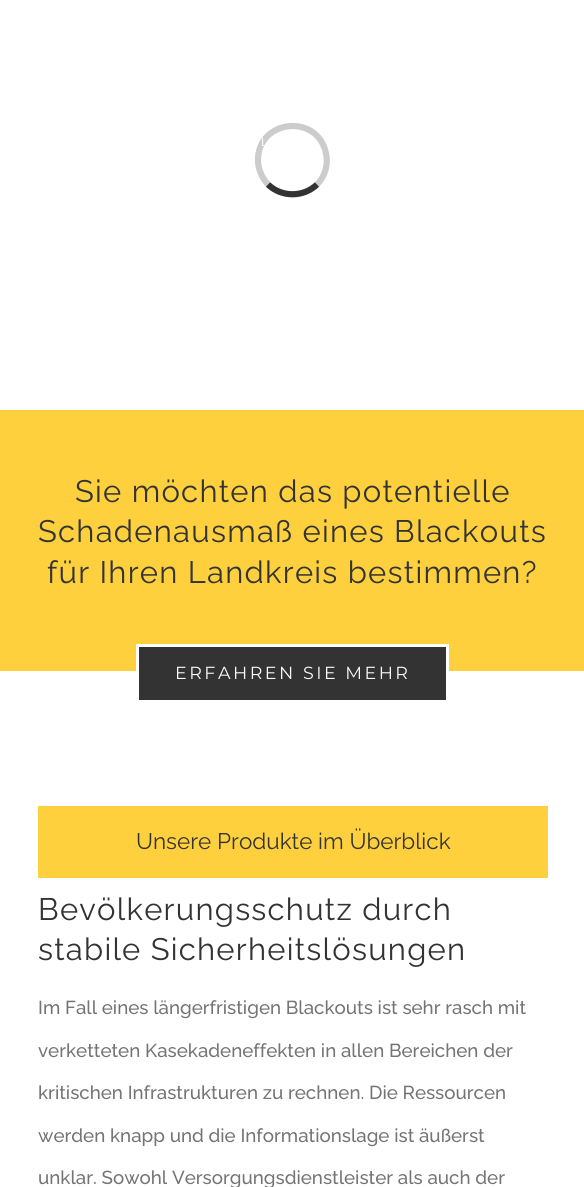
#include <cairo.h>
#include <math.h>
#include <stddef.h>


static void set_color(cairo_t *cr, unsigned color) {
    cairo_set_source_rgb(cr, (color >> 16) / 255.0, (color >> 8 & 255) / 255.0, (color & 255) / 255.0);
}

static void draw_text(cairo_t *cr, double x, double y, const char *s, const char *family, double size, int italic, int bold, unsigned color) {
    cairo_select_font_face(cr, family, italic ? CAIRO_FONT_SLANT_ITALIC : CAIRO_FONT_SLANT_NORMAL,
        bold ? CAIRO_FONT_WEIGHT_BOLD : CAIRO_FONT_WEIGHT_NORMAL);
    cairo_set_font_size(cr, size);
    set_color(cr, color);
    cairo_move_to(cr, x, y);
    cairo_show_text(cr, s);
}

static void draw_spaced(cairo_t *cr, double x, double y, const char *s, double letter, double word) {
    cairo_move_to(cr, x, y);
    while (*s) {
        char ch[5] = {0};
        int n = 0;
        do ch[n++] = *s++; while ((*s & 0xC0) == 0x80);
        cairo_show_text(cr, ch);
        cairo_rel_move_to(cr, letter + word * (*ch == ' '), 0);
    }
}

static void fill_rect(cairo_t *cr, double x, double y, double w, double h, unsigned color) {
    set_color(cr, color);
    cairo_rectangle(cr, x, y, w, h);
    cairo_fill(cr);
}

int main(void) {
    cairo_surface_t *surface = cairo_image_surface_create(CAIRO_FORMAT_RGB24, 584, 1187);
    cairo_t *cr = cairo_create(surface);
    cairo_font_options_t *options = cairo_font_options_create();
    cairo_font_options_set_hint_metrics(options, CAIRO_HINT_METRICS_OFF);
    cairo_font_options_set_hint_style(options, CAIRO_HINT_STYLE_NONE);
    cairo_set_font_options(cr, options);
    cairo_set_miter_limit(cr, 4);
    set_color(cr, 0xFFFFFF);
    cairo_paint(cr);
    cairo_new_path(cr);
    cairo_move_to(cr, 317, 184.5);
    cairo_curve_to(cr, 303.5, 197.5, 281.5, 197.5, 268, 184.5);
    set_color(cr, 0x333333);
    cairo_set_line_width(cr, 6.2);
    cairo_stroke(cr);
    cairo_new_path(cr);
    cairo_move_to(cr, 268, 184.5);
    cairo_curve_to(cr, 262, 178, 258, 169, 258, 160);
    cairo_curve_to(cr, 258, 119, 318, 113, 326, 153.5);
    cairo_curve_to(cr, 328.5, 164.5, 325, 176.5, 317, 184.5);
    cairo_set_source_rgba(cr, 0, 0, 0, 0.2);
    cairo_stroke(cr);
    draw_text(cr, 261, 146, "L", "Raleway Medium", 12, 0, 0, 0xFAFAFA);
    fill_rect(cr, 0, 410, 584, 261, 0xFED03D);
    cairo_select_font_face(cr, "Raleway", CAIRO_FONT_SLANT_NORMAL, CAIRO_FONT_WEIGHT_NORMAL);
    cairo_set_font_size(cr, 31);
    set_color(cr, 0x333333);
    draw_spaced(cr, 75, 502, "Sie möchten das potentielle", 1.25, 0);
    draw_spaced(cr, 38, 542, "Schadenausmaß eines Blackouts", 1.25, 0);
    draw_spaced(cr, 47, 583, "für Ihren Landkreis bestimmen?", 1.25, 0);
    cairo_rectangle(cr, 137.5, 645.5, 310, 56);
    cairo_fill_preserve(cr);
    set_color(cr, 0xFFFFFF);
    cairo_set_line_width(cr, 3);
    cairo_stroke(cr);
    cairo_select_font_face(cr, "Montserrat", CAIRO_FONT_SLANT_NORMAL, CAIRO_FONT_WEIGHT_NORMAL);
    cairo_set_font_size(cr, 17.5);
    set_color(cr, 0xFAFAFA);
    draw_spaced(cr, 175, 679, "ERFAHREN SIE MEHR", 2.5, 0);
    fill_rect(cr, 38, 806, 510, 72, 0xFED03D);
    draw_text(cr, 136, 849, "Unsere Produkte im Überblick", "Raleway", 22.5, 0, 0, 0x333333);
    cairo_set_font_size(cr, 31);
    draw_spaced(cr, 38, 920, "Bevölkerungsschutz durch", 1.25, 0);
    draw_spaced(cr, 38, 960, "stabile Sicherheitslösungen", 1.25, 0);
    draw_text(cr, 38, 1014, "Im Fall eines längerfristigen Blackouts ist sehr rasch mit", "Raleway Medium", 18.75, 0, 0, 0x747474);
    draw_text(cr, 38, 1057, "verketteten Kasekadeneffekten in allen Bereichen der", "Raleway Medium", 18.75, 0, 0, 0x747474);
    draw_text(cr, 38, 1099, "kritischen Infrastrukturen zu rechnen. Die Ressourcen", "Raleway Medium", 18.75, 0, 0, 0x747474);
    draw_text(cr, 38, 1142, "werden knapp und die Informationslage ist äußerst", "Raleway Medium", 18.75, 0, 0, 0x747474);
    draw_text(cr, 38, 1184, "unklar. Sowohl Versorgungsdienstleister als auch der", "Raleway Medium", 18.75, 0, 0, 0x747474);
    cairo_surface_write_to_png(surface, "output.png");
    cairo_font_options_destroy(options);
    cairo_destroy(cr);
    cairo_surface_destroy(surface);
    return 0;
}
